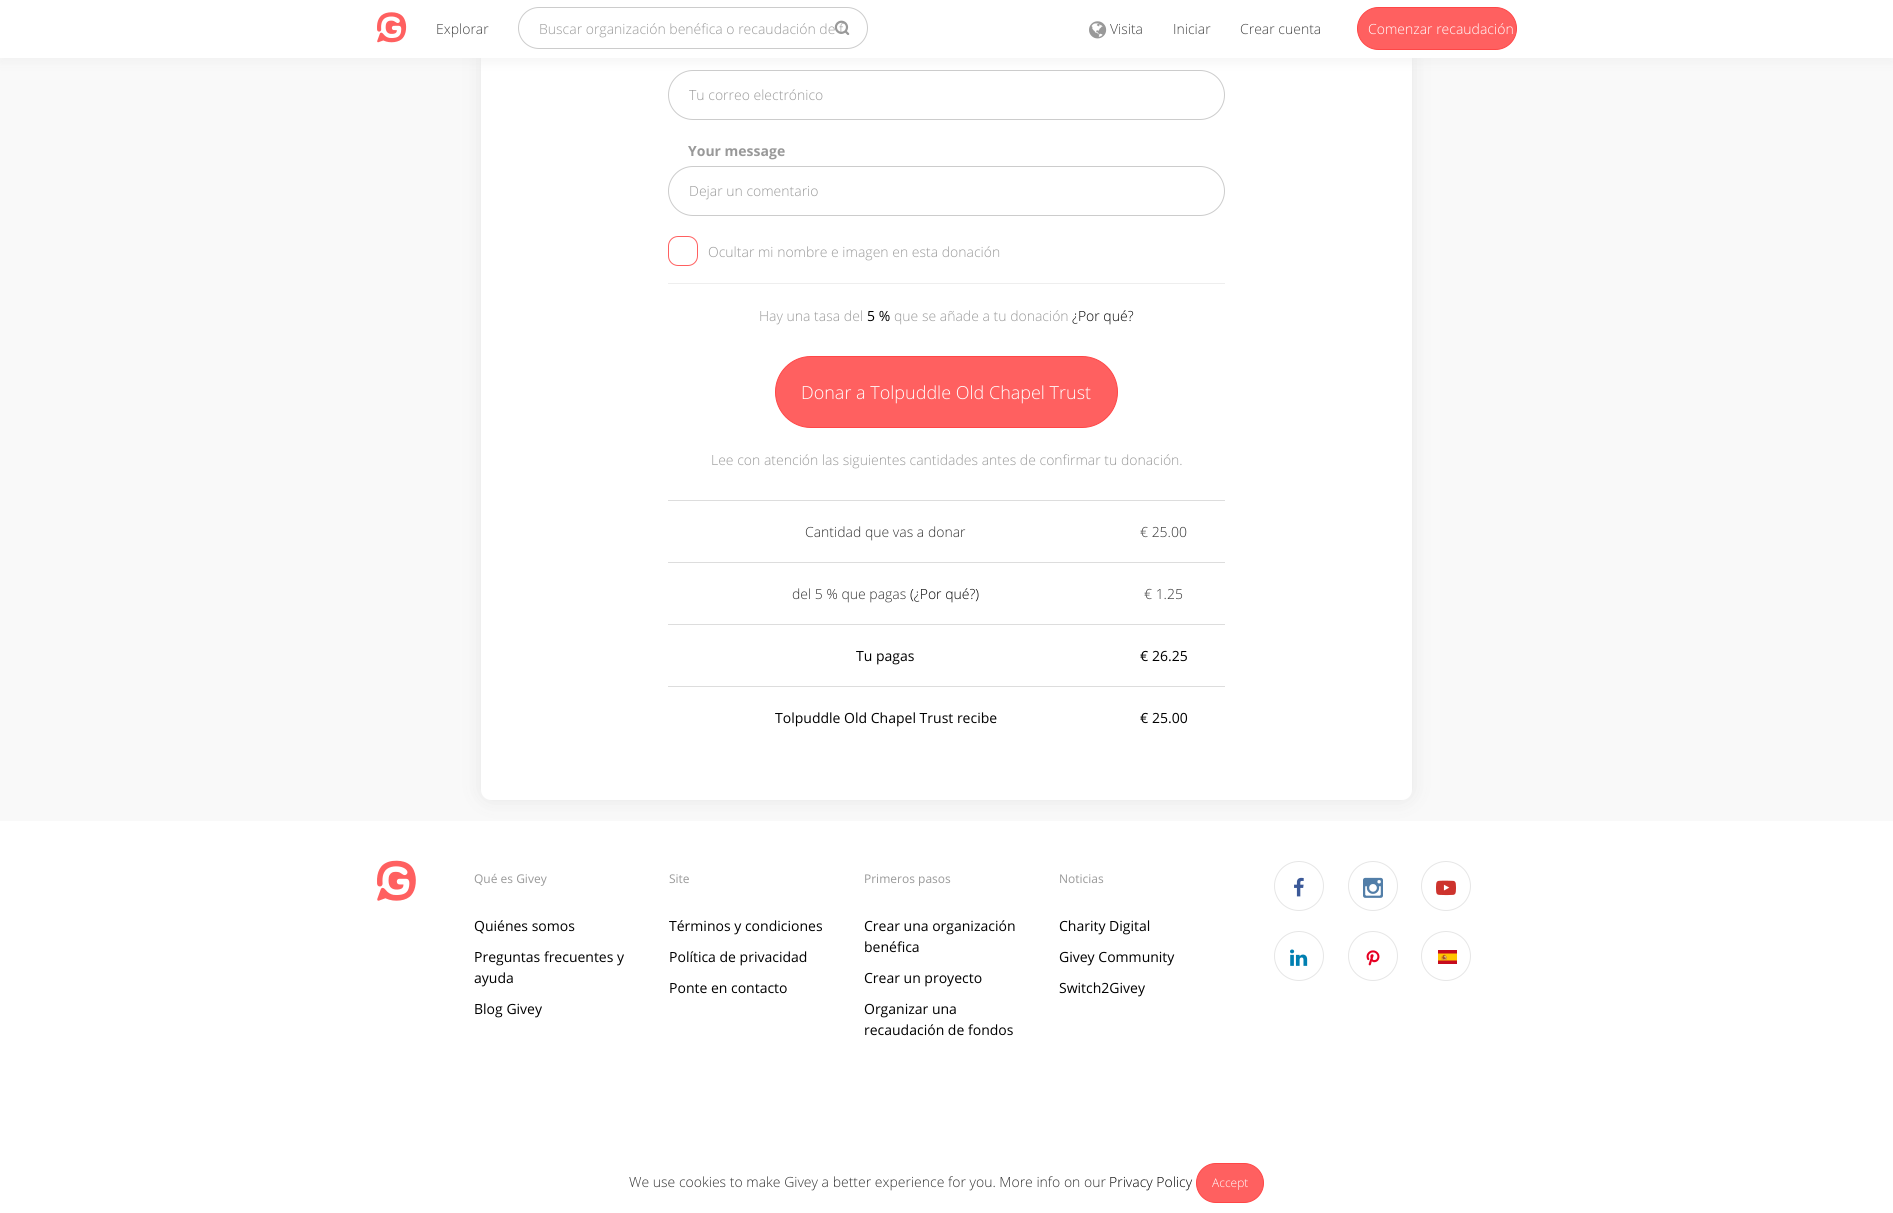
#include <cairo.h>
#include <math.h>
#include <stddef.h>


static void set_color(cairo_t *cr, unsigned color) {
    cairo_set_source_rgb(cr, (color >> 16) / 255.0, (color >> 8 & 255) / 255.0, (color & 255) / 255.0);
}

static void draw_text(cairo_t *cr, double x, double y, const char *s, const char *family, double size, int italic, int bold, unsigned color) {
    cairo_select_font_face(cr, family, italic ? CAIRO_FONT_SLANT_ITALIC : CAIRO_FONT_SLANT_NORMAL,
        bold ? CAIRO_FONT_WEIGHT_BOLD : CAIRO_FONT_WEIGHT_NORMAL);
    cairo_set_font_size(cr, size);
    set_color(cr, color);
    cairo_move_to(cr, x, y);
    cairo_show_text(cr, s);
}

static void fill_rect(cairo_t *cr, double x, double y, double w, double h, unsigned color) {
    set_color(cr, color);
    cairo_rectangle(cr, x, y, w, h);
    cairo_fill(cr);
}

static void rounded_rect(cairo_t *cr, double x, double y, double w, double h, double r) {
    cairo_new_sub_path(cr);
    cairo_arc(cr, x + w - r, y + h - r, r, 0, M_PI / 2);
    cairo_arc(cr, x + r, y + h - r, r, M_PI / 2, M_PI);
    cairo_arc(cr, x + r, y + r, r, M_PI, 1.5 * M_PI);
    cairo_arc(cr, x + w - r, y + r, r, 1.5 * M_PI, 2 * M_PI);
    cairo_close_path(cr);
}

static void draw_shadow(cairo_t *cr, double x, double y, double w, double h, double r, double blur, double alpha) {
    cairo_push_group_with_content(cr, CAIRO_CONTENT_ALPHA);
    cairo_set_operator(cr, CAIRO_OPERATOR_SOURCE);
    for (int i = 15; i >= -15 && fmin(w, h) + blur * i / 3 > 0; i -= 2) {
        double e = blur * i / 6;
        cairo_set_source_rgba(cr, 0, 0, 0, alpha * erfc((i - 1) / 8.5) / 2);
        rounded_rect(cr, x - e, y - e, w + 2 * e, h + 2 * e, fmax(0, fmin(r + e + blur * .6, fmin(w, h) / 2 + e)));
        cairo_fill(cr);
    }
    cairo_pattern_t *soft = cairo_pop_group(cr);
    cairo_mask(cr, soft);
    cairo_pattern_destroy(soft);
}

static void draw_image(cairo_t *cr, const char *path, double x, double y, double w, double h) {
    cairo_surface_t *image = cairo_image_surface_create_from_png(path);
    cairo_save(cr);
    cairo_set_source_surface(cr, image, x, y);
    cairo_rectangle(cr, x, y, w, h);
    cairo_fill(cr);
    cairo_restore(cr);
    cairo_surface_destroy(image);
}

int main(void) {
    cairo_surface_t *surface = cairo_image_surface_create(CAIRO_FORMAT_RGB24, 1893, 1213);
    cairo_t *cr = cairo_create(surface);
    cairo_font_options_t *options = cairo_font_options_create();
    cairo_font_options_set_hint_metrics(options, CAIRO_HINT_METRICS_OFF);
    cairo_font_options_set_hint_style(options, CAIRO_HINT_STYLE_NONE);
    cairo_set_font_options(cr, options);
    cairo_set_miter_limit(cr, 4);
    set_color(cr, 0xF9F9F9);
    cairo_paint(cr);
    fill_rect(cr, 0, 821, 1893, 392, 0xFFFFFF);
    set_color(cr, 0xE6E6E6);
    draw_shadow(cr, 481, -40, 931, 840, 10, 10, 1);
    set_color(cr, 0xFFFFFF);
    rounded_rect(cr, 481, -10, 931, 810, 10);
    cairo_fill(cr);
    rounded_rect(cr, 668.5, 70.5, 556, 49, 24.5);
    set_color(cr, 0xCCCCCC);
    cairo_set_line_width(cr, 1);
    cairo_stroke(cr);
    set_color(cr, 0xE6E6E6);
    draw_shadow(cr, 0, 5, 1893, 58, 0, 5, 0.4);
    fill_rect(cr, 0, 0, 1893, 58, 0xFFFFFF);
    draw_image(cr, "assets/img1.png", 377, 12, 30, 31);
    draw_text(cr, 436, 34, "Explorar", "Open Sans Light", 14, 0, 0, 0x444444);
    rounded_rect(cr, 518.5, 7.5, 349, 41, 20.5);
    set_color(cr, 0xCCCCCC);
    cairo_stroke(cr);
    draw_text(cr, 539, 34, "Buscar organización benéfica o recaudación de f", "Open Sans Light", 14, 0, 0, 0x999999);
    draw_image(cr, "assets/img2.png", 834, 20, 16, 15);
    draw_image(cr, "assets/img3.png", 1089, 21, 18, 18);
    draw_text(cr, 1110, 34, "Visita", "Open Sans Light", 14, 0, 0, 0x444444);
    draw_text(cr, 1173, 34, "Iniciar", "Open Sans Light", 14, 0, 0, 0x444444);
    draw_text(cr, 1240, 34, "Crear cuenta", "Open Sans Light", 14, 0, 0, 0x444444);
    set_color(cr, 0xFF6060);
    rounded_rect(cr, 1357.5, 7.5, 159, 42, 21);
    cairo_fill_preserve(cr);
    set_color(cr, 0xFF4747);
    cairo_stroke(cr);
    draw_text(cr, 1368, 34, "Comenzar recaudación", "Open Sans Light", 14, 0, 0, 0xFFFFFF);
    draw_text(cr, 689, 100, "Tu correo electrónico", "Open Sans Light", 14, 0, 0, 0x999999);
    draw_text(cr, 688, 156, "Your message", "Open Sans", 14, 0, 1, 0x999999);
    rounded_rect(cr, 668.5, 166.5, 556, 49, 24.5);
    set_color(cr, 0xCCCCCC);
    cairo_stroke(cr);
    draw_text(cr, 689, 196, "Dejar un comentario", "Open Sans Light", 14, 0, 0, 0x999999);
    rounded_rect(cr, 668.5, 236.5, 29, 29, 9.5);
    set_color(cr, 0xFF6060);
    cairo_stroke(cr);
    draw_text(cr, 708, 257, "Ocultar mi nombre e imagen en esta donación", "Open Sans Light", 14, 0, 0, 0x999999);
    fill_rect(cr, 668, 283, 557, 1, 0xEEEEEE);
    draw_text(cr, 759, 321, "Hay una tasa del", "Open Sans Light", 14, 0, 0, 0x999999);
    draw_text(cr, 867, 321, "5 %", "Open Sans", 14, 0, 0, 0x000000);
    draw_text(cr, 894, 321, "que se añade a tu donación", "Open Sans Light", 14, 0, 0, 0x999999);
    draw_text(cr, 1072, 321, "¿Por qué?", "Open Sans Light", 14, 0, 0, 0x000000);
    set_color(cr, 0xFF6060);
    rounded_rect(cr, 775.5, 356.5, 342, 71, 35.5);
    cairo_fill_preserve(cr);
    set_color(cr, 0xFF4747);
    cairo_stroke(cr);
    draw_text(cr, 801, 399, "Donar a Tolpuddle Old Chapel Trust", "Open Sans Light", 18, 0, 0, 0xFFFFFF);
    draw_text(cr, 711, 465, "Lee con atención las siguientes cantidades antes de confirmar tu donación.", "Open Sans Light", 14, 0, 0, 0x999999);
    draw_text(cr, 805, 537, "Cantidad que vas a donar", "Open Sans Light", 14, 0, 0, 0x333333);
    fill_rect(cr, 668, 500, 557, 1, 0xDDDDDD);
    draw_text(cr, 1140, 537, "€ 25.00", "Open Sans Light", 14, 0, 0, 0x333333);
    draw_text(cr, 792, 599, "del 5 % que pagas", "Open Sans Light", 14, 0, 0, 0x333333);
    draw_text(cr, 910, 599, "(¿Por qué?)", "Open Sans Light", 14, 0, 0, 0x000000);
    fill_rect(cr, 668, 562, 557, 1, 0xDDDDDD);
    draw_text(cr, 1144, 599, "€ 1.25", "Open Sans Light", 14, 0, 0, 0x333333);
    draw_text(cr, 856, 661, "Tu pagas", "Open Sans", 14, 0, 0, 0x000000);
    fill_rect(cr, 668, 624, 557, 1, 0xDDDDDD);
    draw_text(cr, 1140, 661, "€ 26.25", "Open Sans", 14, 0, 0, 0x000000);
    draw_text(cr, 775, 723, "Tolpuddle Old Chapel Trust recibe", "Open Sans", 14, 0, 0, 0x000000);
    fill_rect(cr, 668, 686, 557, 1, 0xDDDDDD);
    draw_text(cr, 1140, 723, "€ 25.00", "Open Sans", 14, 0, 0, 0x000000);
    draw_image(cr, "assets/img4.png", 377, 860, 39, 41);
    draw_text(cr, 474, 883, "Qué es Givey", "Open Sans", 12, 0, 0, 0x999999);
    draw_text(cr, 474, 931, "Quiénes somos", "Open Sans", 14, 0, 0, 0x000000);
    draw_text(cr, 474, 962, "Preguntas frecuentes y", "Open Sans", 14, 0, 0, 0x000000);
    draw_text(cr, 474, 983, "ayuda", "Open Sans", 14, 0, 0, 0x000000);
    draw_text(cr, 474, 1014, "Blog Givey", "Open Sans", 14, 0, 0, 0x000000);
    draw_text(cr, 669, 883, "Site", "Open Sans", 12, 0, 0, 0x999999);
    draw_text(cr, 669, 931, "Términos y condiciones", "Open Sans", 14, 0, 0, 0x000000);
    draw_text(cr, 669, 962, "Política de privacidad", "Open Sans", 14, 0, 0, 0x000000);
    draw_text(cr, 669, 993, "Ponte en contacto", "Open Sans", 14, 0, 0, 0x000000);
    draw_text(cr, 864, 883, "Primeros pasos", "Open Sans", 12, 0, 0, 0x999999);
    draw_text(cr, 864, 931, "Crear una organización", "Open Sans", 14, 0, 0, 0x000000);
    draw_text(cr, 864, 952, "benéfica", "Open Sans", 14, 0, 0, 0x000000);
    draw_text(cr, 864, 983, "Crear un proyecto", "Open Sans", 14, 0, 0, 0x000000);
    draw_text(cr, 864, 1014, "Organizar una", "Open Sans", 14, 0, 0, 0x000000);
    draw_text(cr, 864, 1035, "recaudación de fondos", "Open Sans", 14, 0, 0, 0x000000);
    draw_text(cr, 1059, 883, "Noticias", "Open Sans", 12, 0, 0, 0x999999);
    draw_text(cr, 1059, 931, "Charity Digital", "Open Sans", 14, 0, 0, 0x000000);
    draw_text(cr, 1059, 962, "Givey Community", "Open Sans", 14, 0, 0, 0x000000);
    draw_text(cr, 1059, 993, "Switch2Givey", "Open Sans", 14, 0, 0, 0x000000);
    cairo_new_path(cr);
    cairo_arc(cr, 1299, 886, 24.5, 0, 2 * M_PI);
    set_color(cr, 0xE6E6E6);
    cairo_stroke(cr);
    draw_image(cr, "assets/img5.png", 1294, 877, 10, 20);
    cairo_arc(cr, 1373, 886, 24.5, 0, 2 * M_PI);
    cairo_stroke(cr);
    draw_image(cr, "assets/img6.png", 1363, 877, 20, 21);
    cairo_arc(cr, 1446, 886, 24.5, 0, 2 * M_PI);
    cairo_stroke(cr);
    draw_image(cr, "assets/img7.png", 1436, 880, 20, 16);
    cairo_arc(cr, 1299, 956, 24.5, 0, 2 * M_PI);
    cairo_stroke(cr);
    draw_image(cr, "assets/img8.png", 1290, 949, 18, 17);
    cairo_arc(cr, 1373, 956, 24.5, 0, 2 * M_PI);
    cairo_stroke(cr);
    draw_image(cr, "assets/img9.png", 1366, 950, 14, 16);
    cairo_arc(cr, 1446, 956, 24.5, 0, 2 * M_PI);
    cairo_stroke(cr);
    draw_image(cr, "assets/img10.png", 1438, 950, 19, 14);
    draw_text(cr, 629, 1187, "We use cookies to make Givey a better experience for you. More info on our", "Open Sans Light", 14, 0, 0, 0x333333);
    draw_text(cr, 1109, 1187, "Privacy Policy", "Open Sans Light", 14, 0, 0, 0x000000);
    set_color(cr, 0xFF6060);
    rounded_rect(cr, 1196.5, 1163.5, 67, 39, 19.5);
    cairo_fill_preserve(cr);
    set_color(cr, 0xFF4747);
    cairo_stroke(cr);
    draw_text(cr, 1212, 1187, "Accept", "Open Sans Light", 12, 0, 0, 0xFFFFFF);
    cairo_surface_write_to_png(surface, "output.png");
    cairo_font_options_destroy(options);
    cairo_destroy(cr);
    cairo_surface_destroy(surface);
    return 0;
}
